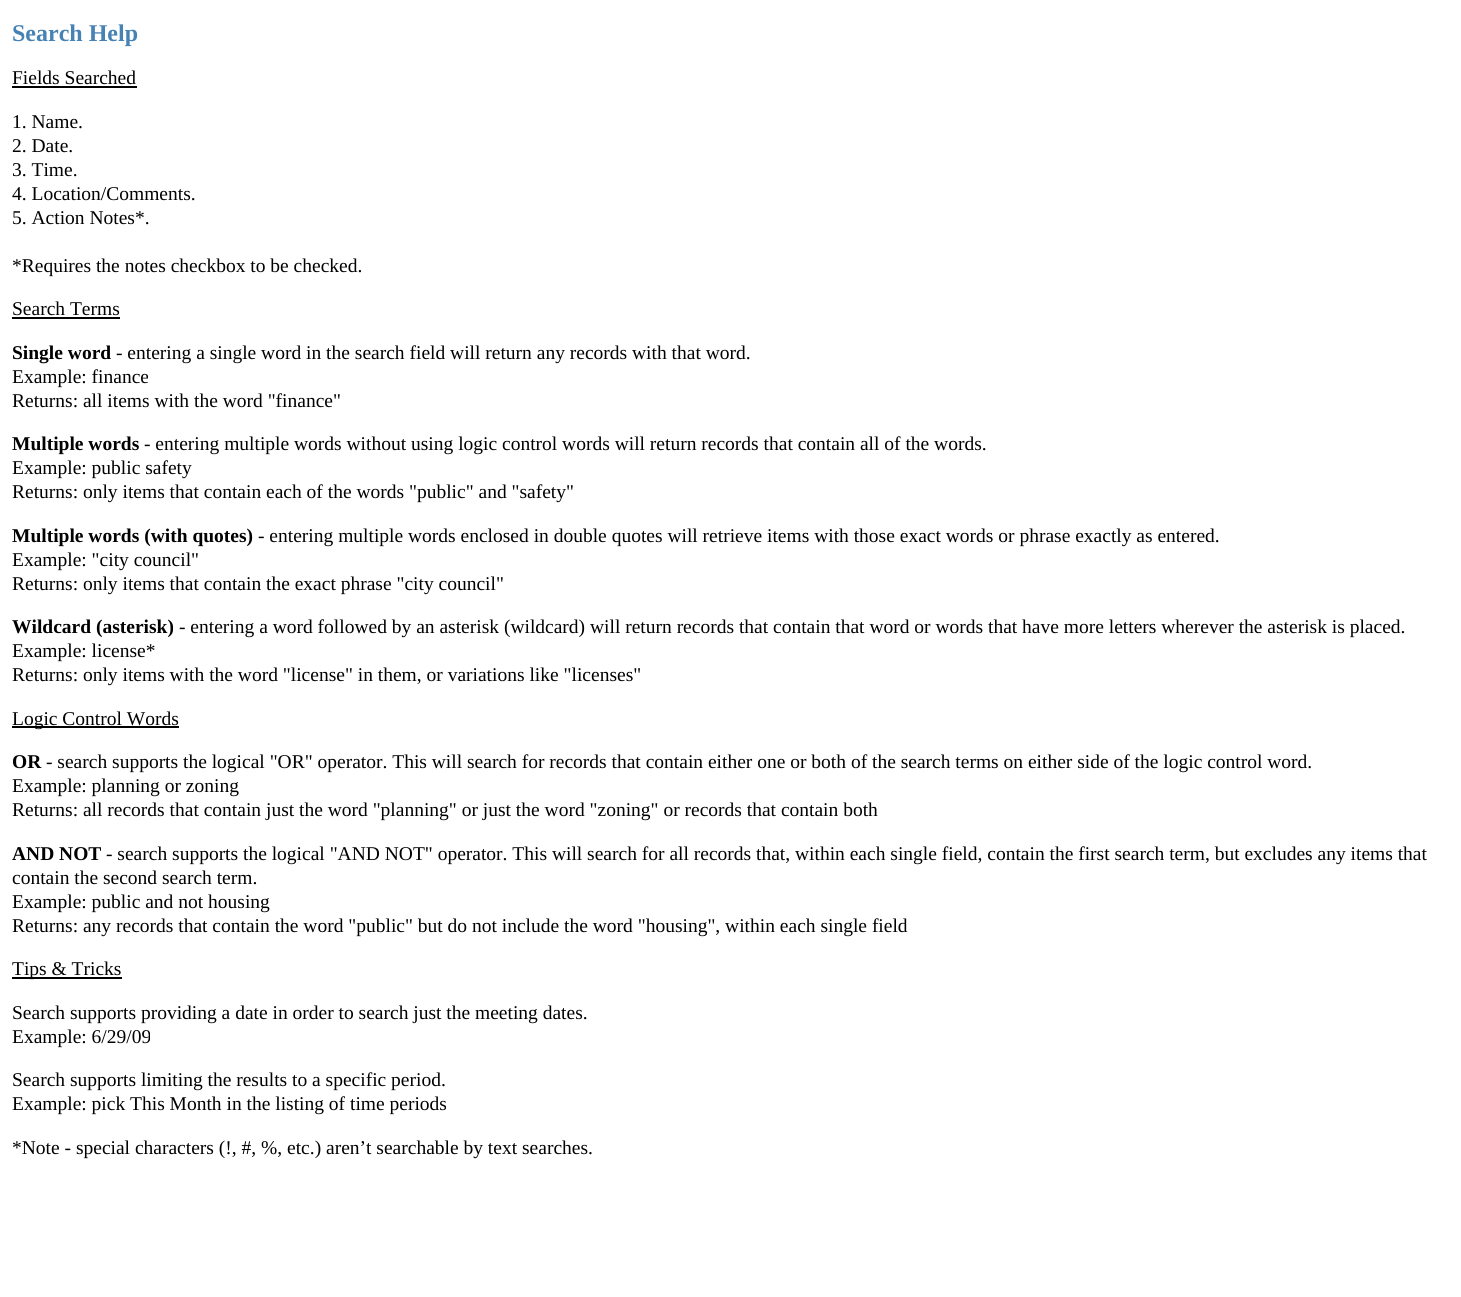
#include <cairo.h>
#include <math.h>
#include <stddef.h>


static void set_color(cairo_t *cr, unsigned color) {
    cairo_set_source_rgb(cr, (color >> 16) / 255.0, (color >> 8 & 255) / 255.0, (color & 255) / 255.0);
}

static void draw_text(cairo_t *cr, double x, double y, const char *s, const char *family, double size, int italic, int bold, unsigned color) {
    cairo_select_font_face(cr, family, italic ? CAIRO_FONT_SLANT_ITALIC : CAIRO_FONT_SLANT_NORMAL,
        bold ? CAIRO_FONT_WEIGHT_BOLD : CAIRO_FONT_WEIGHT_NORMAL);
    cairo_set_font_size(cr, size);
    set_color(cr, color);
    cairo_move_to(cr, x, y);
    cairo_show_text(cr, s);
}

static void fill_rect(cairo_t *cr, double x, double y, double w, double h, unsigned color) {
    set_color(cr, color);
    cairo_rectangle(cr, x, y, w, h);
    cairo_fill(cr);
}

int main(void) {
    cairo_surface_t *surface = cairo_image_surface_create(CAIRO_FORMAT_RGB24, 1461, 1297);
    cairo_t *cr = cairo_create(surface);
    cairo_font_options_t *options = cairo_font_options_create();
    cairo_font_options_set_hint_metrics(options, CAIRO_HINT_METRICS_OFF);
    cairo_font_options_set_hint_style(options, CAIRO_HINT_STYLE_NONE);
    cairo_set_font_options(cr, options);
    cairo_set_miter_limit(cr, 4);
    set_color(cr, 0xFFFFFF);
    cairo_paint(cr);
    draw_text(cr, 12, 41, "Search Help", "Liberation Serif", 24, 0, 1, 0x4682B4);
    draw_text(cr, 12, 84, "Fields Searched", "Liberation Serif", 19.5, 0, 0, 0x000000);
    fill_rect(cr, 12, 86, 125, 2, 0x000000);
    draw_text(cr, 12, 128, "1. Name.", "Liberation Serif", 19.5, 0, 0, 0x000000);
    draw_text(cr, 12, 152, "2. Date.", "Liberation Serif", 19.5, 0, 0, 0x000000);
    draw_text(cr, 12, 176, "3. Time.", "Liberation Serif", 19.5, 0, 0, 0x000000);
    draw_text(cr, 12, 200, "4. Location/Comments.", "Liberation Serif", 19.5, 0, 0, 0x000000);
    draw_text(cr, 12, 224, "5. Action Notes*.", "Liberation Serif", 19.5, 0, 0, 0x000000);
    draw_text(cr, 12, 272, "*Requires the notes checkbox to be checked.", "Liberation Serif", 19.5, 0, 0, 0x000000);
    draw_text(cr, 12, 315, "Search Terms", "Liberation Serif", 19.5, 0, 0, 0x000000);
    fill_rect(cr, 12, 317, 108, 2, 0x000000);
    draw_text(cr, 12, 359, "Single word", "Liberation Serif", 19.5, 0, 1, 0x000000);
    draw_text(cr, 116, 359, "- entering a single word in the search field will return any records with that word.", "Liberation Serif", 19.5, 0, 0, 0x000000);
    draw_text(cr, 12, 383, "Example: finance", "Liberation Serif", 19.5, 0, 0, 0x000000);
    draw_text(cr, 12, 407, "Returns: all items with the word \"finance\"", "Liberation Serif", 19.5, 0, 0, 0x000000);
    draw_text(cr, 12, 450, "Multiple words", "Liberation Serif", 19.5, 0, 1, 0x000000);
    draw_text(cr, 144, 450, "- entering multiple words without using logic control words will return records that contain all of the words.", "Liberation Serif", 19.5, 0, 0, 0x000000);
    draw_text(cr, 12, 474, "Example: public safety", "Liberation Serif", 19.5, 0, 0, 0x000000);
    draw_text(cr, 12, 498, "Returns: only items that contain each of the words \"public\" and \"safety\"", "Liberation Serif", 19.5, 0, 0, 0x000000);
    draw_text(cr, 12, 542, "Multiple words (with quotes)", "Liberation Serif", 19.5, 0, 1, 0x000000);
    draw_text(cr, 258, 542, "- entering multiple words enclosed in double quotes will retrieve items with those exact words or phrase exactly as entered.", "Liberation Serif", 19.5, 0, 0, 0x000000);
    draw_text(cr, 12, 566, "Example: \"city council\"", "Liberation Serif", 19.5, 0, 0, 0x000000);
    draw_text(cr, 12, 590, "Returns: only items that contain the exact phrase \"city council\"", "Liberation Serif", 19.5, 0, 0, 0x000000);
    draw_text(cr, 12, 633, "Wildcard (asterisk)", "Liberation Serif", 19.5, 0, 1, 0x000000);
    draw_text(cr, 179, 633, "- entering a word followed by an asterisk (wildcard) will return records that contain that word or words that have more letters wherever the asterisk is placed.", "Liberation Serif", 19.5, 0, 0, 0x000000);
    draw_text(cr, 12, 657, "Example: license*", "Liberation Serif", 19.5, 0, 0, 0x000000);
    draw_text(cr, 12, 681, "Returns: only items with the word \"license\" in them, or variations like \"licenses\"", "Liberation Serif", 19.5, 0, 0, 0x000000);
    fill_rect(cr, 12, 726, 167, 2, 0x000000);
    draw_text(cr, 12, 725, "Logic Control Words", "Liberation Serif", 19.5, 0, 0, 0x000000);
    draw_text(cr, 12, 768, "OR", "Liberation Serif", 19.5, 0, 1, 0x000000);
    draw_text(cr, 46, 768, "- search supports the logical \"OR\" operator. This will search for records that contain either one or both of the search terms on either side of the logic control word.", "Liberation Serif", 19.5, 0, 0, 0x000000);
    draw_text(cr, 12, 792, "Example: planning or zoning", "Liberation Serif", 19.5, 0, 0, 0x000000);
    draw_text(cr, 12, 816, "Returns: all records that contain just the word \"planning\" or just the word \"zoning\" or records that contain both", "Liberation Serif", 19.5, 0, 0, 0x000000);
    draw_text(cr, 12, 860, "AND NOT", "Liberation Serif", 19.5, 0, 1, 0x000000);
    draw_text(cr, 106, 860, "- search supports the logical \"AND NOT\" operator. This will search for all records that, within each single field, contain the first search term, but excludes any items that", "Liberation Serif", 19.5, 0, 0, 0x000000);
    draw_text(cr, 12, 884, "contain the second search term.", "Liberation Serif", 19.5, 0, 0, 0x000000);
    draw_text(cr, 12, 908, "Example: public and not housing", "Liberation Serif", 19.5, 0, 0, 0x000000);
    draw_text(cr, 12, 932, "Returns: any records that contain the word \"public\" but do not include the word \"housing\", within each single field", "Liberation Serif", 19.5, 0, 0, 0x000000);
    fill_rect(cr, 12, 977, 110, 2, 0x000000);
    draw_text(cr, 12, 975, "Tips & Tricks", "Liberation Serif", 19.5, 0, 0, 0x000000);
    draw_text(cr, 12, 1019, "Search supports providing a date in order to search just the meeting dates.", "Liberation Serif", 19.5, 0, 0, 0x000000);
    draw_text(cr, 12, 1043, "Example: 6/29/09", "Liberation Serif", 19.5, 0, 0, 0x000000);
    draw_text(cr, 12, 1086, "Search supports limiting the results to a specific period.", "Liberation Serif", 19.5, 0, 0, 0x000000);
    draw_text(cr, 12, 1110, "Example: pick This Month in the listing of time periods", "Liberation Serif", 19.5, 0, 0, 0x000000);
    draw_text(cr, 12, 1154, "*Note - special characters (!, #, %, etc.) aren’t searchable by text searches.", "Liberation Serif", 19.5, 0, 0, 0x000000);
    cairo_surface_write_to_png(surface, "output.png");
    cairo_font_options_destroy(options);
    cairo_destroy(cr);
    cairo_surface_destroy(surface);
    return 0;
}
